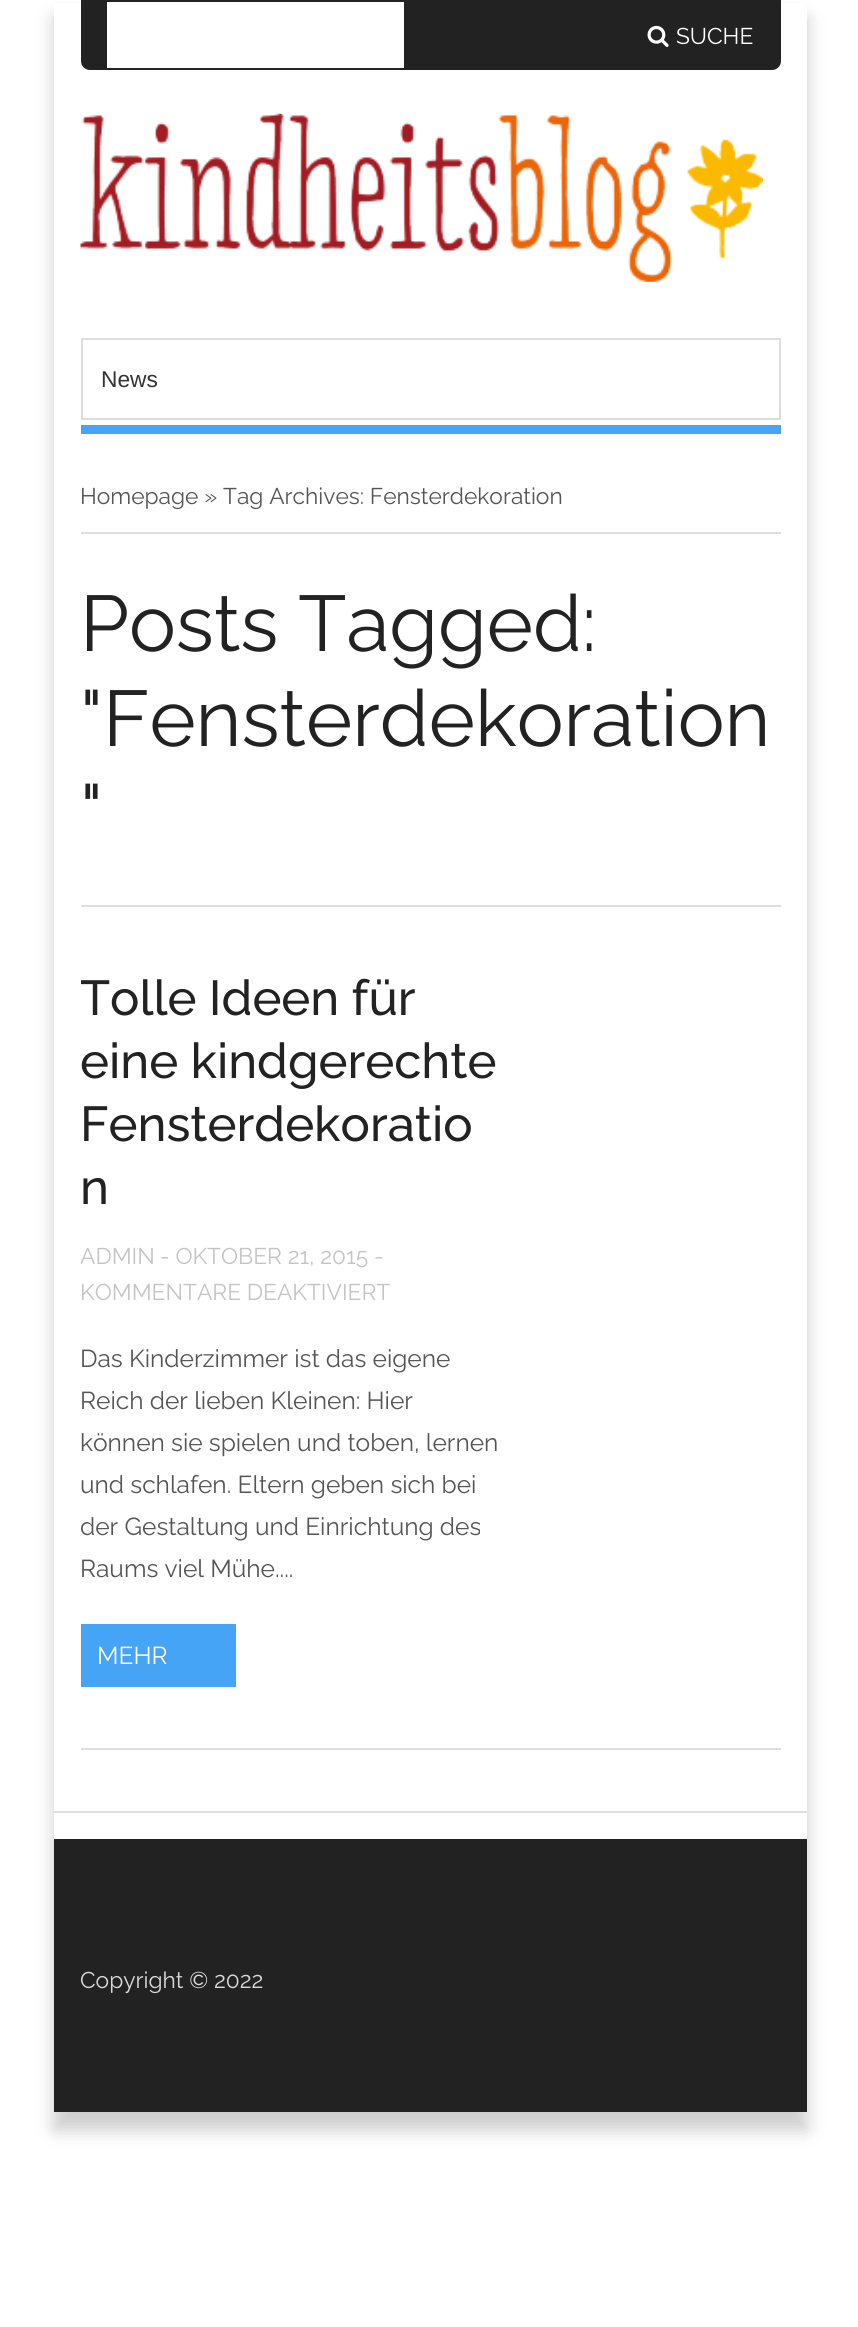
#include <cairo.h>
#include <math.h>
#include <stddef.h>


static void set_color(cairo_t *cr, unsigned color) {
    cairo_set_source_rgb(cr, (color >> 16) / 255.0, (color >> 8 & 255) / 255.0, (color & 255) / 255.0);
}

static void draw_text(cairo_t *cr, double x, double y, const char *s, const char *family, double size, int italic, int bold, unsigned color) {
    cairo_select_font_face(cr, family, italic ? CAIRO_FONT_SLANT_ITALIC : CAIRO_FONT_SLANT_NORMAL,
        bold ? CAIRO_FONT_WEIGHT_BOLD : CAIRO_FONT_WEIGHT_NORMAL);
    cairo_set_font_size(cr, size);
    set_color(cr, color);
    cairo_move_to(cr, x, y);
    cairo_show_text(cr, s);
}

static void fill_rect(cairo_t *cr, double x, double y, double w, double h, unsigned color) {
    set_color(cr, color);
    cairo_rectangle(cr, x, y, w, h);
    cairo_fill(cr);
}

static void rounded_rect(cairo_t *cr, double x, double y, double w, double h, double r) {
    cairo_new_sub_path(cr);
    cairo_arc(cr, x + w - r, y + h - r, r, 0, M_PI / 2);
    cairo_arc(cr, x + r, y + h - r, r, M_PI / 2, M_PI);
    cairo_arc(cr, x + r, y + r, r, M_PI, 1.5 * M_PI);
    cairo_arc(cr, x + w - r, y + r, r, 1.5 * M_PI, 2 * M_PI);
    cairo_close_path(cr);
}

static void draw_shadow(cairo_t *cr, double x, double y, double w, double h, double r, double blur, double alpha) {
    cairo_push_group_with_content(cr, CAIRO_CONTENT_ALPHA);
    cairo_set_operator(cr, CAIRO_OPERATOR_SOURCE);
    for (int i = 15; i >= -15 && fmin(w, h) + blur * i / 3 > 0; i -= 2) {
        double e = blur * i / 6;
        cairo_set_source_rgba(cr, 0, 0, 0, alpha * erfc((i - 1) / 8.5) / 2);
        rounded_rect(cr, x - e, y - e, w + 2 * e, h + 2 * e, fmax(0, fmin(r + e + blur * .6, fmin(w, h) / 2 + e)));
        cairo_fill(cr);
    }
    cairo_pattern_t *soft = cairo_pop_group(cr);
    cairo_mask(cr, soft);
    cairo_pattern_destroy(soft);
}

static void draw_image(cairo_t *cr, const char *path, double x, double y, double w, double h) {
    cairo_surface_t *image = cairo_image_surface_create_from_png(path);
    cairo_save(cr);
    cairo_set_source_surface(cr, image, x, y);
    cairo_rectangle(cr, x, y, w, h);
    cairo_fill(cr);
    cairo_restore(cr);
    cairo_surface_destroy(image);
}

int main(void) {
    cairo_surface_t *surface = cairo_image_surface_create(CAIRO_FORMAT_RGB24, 858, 2327);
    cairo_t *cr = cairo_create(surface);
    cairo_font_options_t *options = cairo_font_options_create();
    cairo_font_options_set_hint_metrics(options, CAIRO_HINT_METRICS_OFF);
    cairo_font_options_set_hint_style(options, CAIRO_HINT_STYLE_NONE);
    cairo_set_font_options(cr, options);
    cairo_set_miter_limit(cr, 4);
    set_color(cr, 0xFFFFFF);
    cairo_paint(cr);
    set_color(cr, 0x000000);
    draw_shadow(cr, 54, 18, 753, 2112, 0, 9, 0.2);
    fill_rect(cr, 54, 3, 753, 1808, 0xFFFFFF);
    set_color(cr, 0x222222);
    cairo_new_path(cr);
    cairo_move_to(cr, 81, 0);
    cairo_line_to(cr, 781, 0);
    cairo_line_to(cr, 781, 61);
    cairo_curve_to(cr, 781, 66, 777, 70, 772, 70);
    cairo_line_to(cr, 90, 70);
    cairo_curve_to(cr, 85, 70, 81, 66, 81, 61);
    cairo_close_path(cr);
    cairo_fill(cr);
    fill_rect(cr, 107, 2, 297, 66, 0xFFFFFF);
    draw_image(cr, "assets/img1.png", 647, 25, 22, 22);
    draw_text(cr, 676, 44, "SUCHE", "Raleway", 22.75, 0, 0, 0xFFFFFF);
    draw_image(cr, "assets/img2.png", 80, 113, 683, 169);
    fill_rect(cr, 81, 425, 700, 9, 0x45A4F5);
    cairo_rectangle(cr, 82, 339, 698, 80);
    set_color(cr, 0xDDDDDD);
    cairo_stroke(cr);
    draw_text(cr, 101, 387, "News", "Liberation Sans", 22.75, 0, 0, 0x333333);
    fill_rect(cr, 81, 905, 700, 2, 0xDFDFDF);
    fill_rect(cr, 81, 532, 700, 2, 0xDFDFDF);
    draw_text(cr, 80, 504, "Homepage » Tag Archives: Fensterdekoration", "Raleway", 22.75, 0, 0, 0x555555);
    draw_text(cr, 80, 651, "Posts Tagged:", "Raleway", 78.75, 0, 0, 0x222222);
    draw_text(cr, 80, 746, "\"Fensterdekoration", "Raleway", 78.75, 0, 0, 0x222222);
    draw_text(cr, 80, 840, "\"", "Raleway", 78.75, 0, 0, 0x222222);
    fill_rect(cr, 81, 1748, 700, 2, 0xDFDFDF);
    cairo_save(cr);
    cairo_rectangle(cr, 81, 907, 700, 841);
    cairo_clip(cr);
    draw_text(cr, 80, 1015, "Tolle Ideen für", "Raleway Medium", 49, 0, 0, 0x222222);
    cairo_restore(cr);
    draw_text(cr, 80, 1078, "eine kindgerechte", "Raleway Medium", 49, 0, 0, 0x222222);
    draw_text(cr, 80, 1141, "Fensterdekoratio", "Raleway Medium", 49, 0, 0, 0x222222);
    draw_text(cr, 80, 1204, "n", "Raleway Medium", 49, 0, 0, 0x222222);
    cairo_save(cr);
    cairo_rectangle(cr, 81, 1237, 420, 74);
    cairo_clip(cr);
    draw_text(cr, 80, 1264, "ADMIN", "Raleway", 22.75, 0, 0, 0xC4C4C4);
    cairo_restore(cr);
    draw_text(cr, 160, 1264, "- OKTOBER 21, 2015 -", "Raleway", 22.75, 0, 0, 0xC4C4C4);
    draw_text(cr, 80, 1300, "KOMMENTARE DEAKTIVIERT", "Raleway", 22.75, 0, 0, 0xC4C4C4);
    draw_text(cr, 80, 1367, "Das Kinderzimmer ist das eigene", "Raleway", 24.5, 0, 0, 0x555555);
    draw_text(cr, 80, 1409, "Reich der lieben Kleinen: Hier", "Raleway", 24.5, 0, 0, 0x555555);
    draw_text(cr, 80, 1451, "können sie spielen und toben, lernen", "Raleway", 24.5, 0, 0, 0x555555);
    draw_text(cr, 80, 1493, "und schlafen. Eltern geben sich bei", "Raleway", 24.5, 0, 0, 0x555555);
    cairo_save(cr);
    cairo_rectangle(cr, 81, 907, 700, 841);
    cairo_clip(cr);
    draw_text(cr, 80, 1535, "der Gestaltung und Einrichtung des", "Raleway", 24.5, 0, 0, 0x555555);
    cairo_restore(cr);
    draw_text(cr, 80, 1577, "Raums viel Mühe....", "Raleway", 24.5, 0, 0, 0x555555);
    fill_rect(cr, 81, 1624, 155, 63, 0x45A4F5);
    draw_text(cr, 97, 1664, "MEHR", "Raleway", 24.5, 0, 0, 0xFFFFFF);
    fill_rect(cr, 54, 1839, 753, 273, 0x222222);
    fill_rect(cr, 54, 1813, 753, 26, 0xFFFFFF);
    fill_rect(cr, 54, 1811, 753, 2, 0xDFDFDF);
    draw_text(cr, 80, 1988, "Copyright © 2022", "Raleway", 22.75, 0, 0, 0xD9D9D9);
    cairo_surface_write_to_png(surface, "output.png");
    cairo_font_options_destroy(options);
    cairo_destroy(cr);
    cairo_surface_destroy(surface);
    return 0;
}
